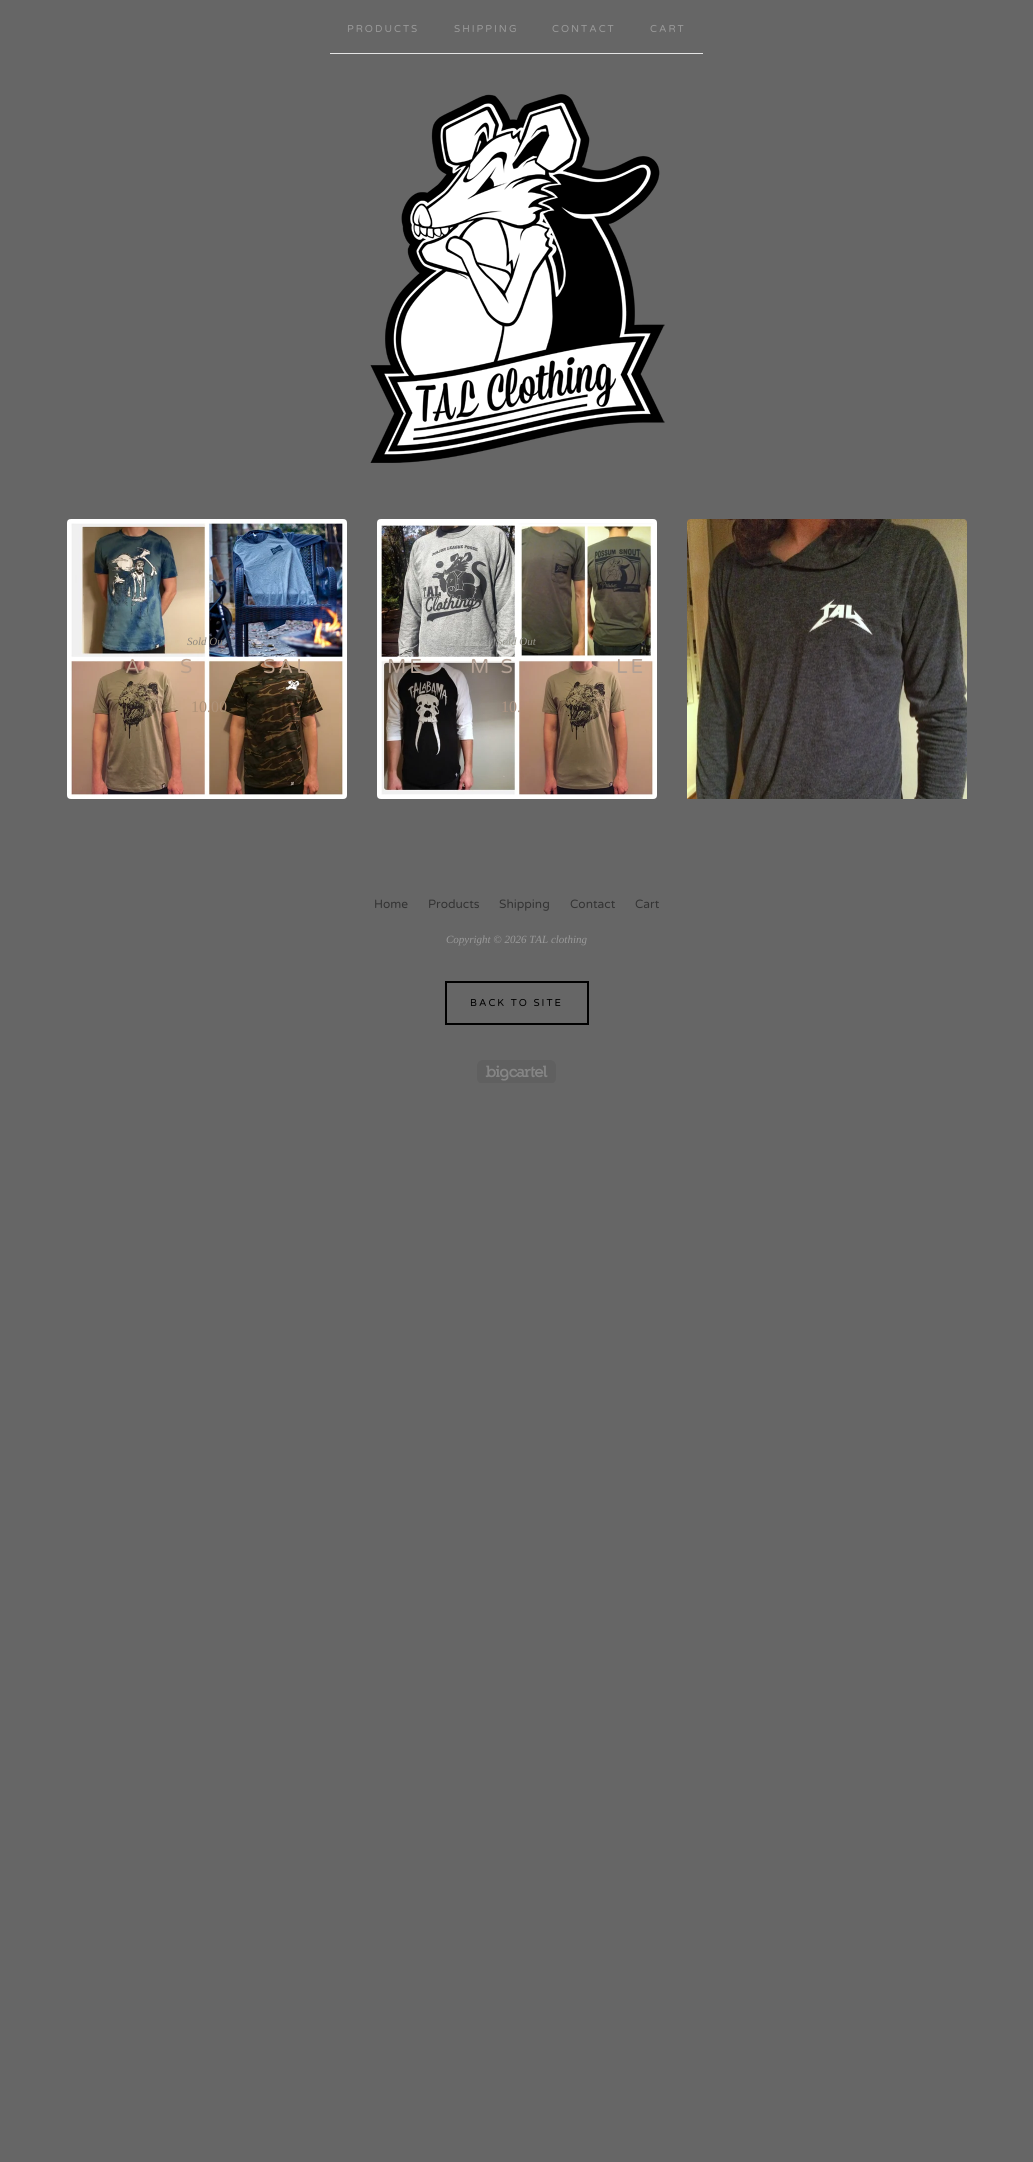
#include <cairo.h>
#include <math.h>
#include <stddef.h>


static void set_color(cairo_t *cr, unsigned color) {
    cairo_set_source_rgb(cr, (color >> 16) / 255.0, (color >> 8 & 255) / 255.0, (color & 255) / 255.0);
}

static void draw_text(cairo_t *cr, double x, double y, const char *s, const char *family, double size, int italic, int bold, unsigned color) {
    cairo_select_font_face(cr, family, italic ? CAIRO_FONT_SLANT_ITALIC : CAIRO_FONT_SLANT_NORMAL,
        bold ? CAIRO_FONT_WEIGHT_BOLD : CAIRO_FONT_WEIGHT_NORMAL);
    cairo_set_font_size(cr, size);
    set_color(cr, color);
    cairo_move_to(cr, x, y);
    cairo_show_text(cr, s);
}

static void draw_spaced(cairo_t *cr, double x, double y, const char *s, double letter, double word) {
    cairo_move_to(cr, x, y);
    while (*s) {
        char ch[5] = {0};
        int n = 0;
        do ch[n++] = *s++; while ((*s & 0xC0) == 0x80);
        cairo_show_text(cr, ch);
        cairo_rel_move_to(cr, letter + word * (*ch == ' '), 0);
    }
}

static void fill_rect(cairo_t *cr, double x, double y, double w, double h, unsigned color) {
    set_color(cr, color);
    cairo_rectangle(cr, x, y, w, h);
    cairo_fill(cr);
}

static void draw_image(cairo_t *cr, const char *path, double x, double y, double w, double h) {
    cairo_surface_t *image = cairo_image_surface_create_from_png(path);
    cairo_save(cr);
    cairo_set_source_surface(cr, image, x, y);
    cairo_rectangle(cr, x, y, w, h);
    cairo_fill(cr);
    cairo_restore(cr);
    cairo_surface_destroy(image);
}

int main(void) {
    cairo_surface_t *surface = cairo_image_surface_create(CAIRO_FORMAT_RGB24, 1033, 2162);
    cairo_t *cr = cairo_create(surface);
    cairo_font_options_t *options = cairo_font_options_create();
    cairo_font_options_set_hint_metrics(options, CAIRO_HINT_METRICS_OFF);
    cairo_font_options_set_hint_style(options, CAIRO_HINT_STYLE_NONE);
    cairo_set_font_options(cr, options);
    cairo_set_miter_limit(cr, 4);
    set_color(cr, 0x666666);
    cairo_paint(cr);
    fill_rect(cr, 330, 53, 373, 1, 0xE5E5E5);
    cairo_select_font_face(cr, "Varela Round", CAIRO_FONT_SLANT_NORMAL, CAIRO_FONT_WEIGHT_NORMAL);
    cairo_set_font_size(cr, 10);
    set_color(cr, 0x999999);
    draw_spaced(cr, 347, 32, "PRODUCTS", 2, 0);
    draw_spaced(cr, 454, 32, "SHIPPING", 2, 0);
    draw_spaced(cr, 552, 32, "CONTACT", 2, 0);
    draw_spaced(cr, 650, 32, "CART", 2, 0);
    draw_image(cr, "assets/img1.png", 370, 94, 295, 369);
    draw_image(cr, "assets/img2.png", 67, 519, 280, 280);
    draw_text(cr, 187, 645, "Sold Ou", "Liberation Serif", 11, 1, 0, 0x8E877D);
    cairo_select_font_face(cr, "Varela Round", CAIRO_FONT_SLANT_NORMAL, CAIRO_FONT_WEIGHT_NORMAL);
    cairo_set_font_size(cr, 20);
    set_color(cr, 0xBAA08C);
    draw_spaced(cr, 125, 673, "A", 3, 0);
    draw_spaced(cr, 180, 673, "S", 3, 0);
    draw_spaced(cr, 263, 673, "SAL", 3, 0);
    draw_text(cr, 191, 712, "10.00", "Liberation Serif", 16, 0, 0, 0xAE9177);
    draw_image(cr, "assets/img3.png", 377, 519, 280, 280);
    draw_text(cr, 497, 645, "Sold Out", "Liberation Serif", 11, 1, 0, 0x97968D);
    cairo_select_font_face(cr, "Varela Round", CAIRO_FONT_SLANT_NORMAL, CAIRO_FONT_WEIGHT_NORMAL);
    cairo_set_font_size(cr, 20);
    set_color(cr, 0xB2A094);
    draw_spaced(cr, 387, 673, "ME", 3, 0);
    draw_spaced(cr, 470, 673, "M S", 3, 0);
    draw_spaced(cr, 616, 673, "LE", 3, 0);
    draw_text(cr, 501, 712, "10.", "Liberation Serif", 16, 0, 0, 0xAD9483);
    draw_image(cr, "assets/img4.png", 687, 519, 280, 280);
    draw_text(cr, 374, 908, "Home", "Varela Round", 12, 0, 0, 0x333333);
    draw_text(cr, 428, 908, "Products", "Varela Round", 12, 0, 0, 0x333333);
    draw_text(cr, 499, 908, "Shipping", "Varela Round", 12, 0, 0, 0x333333);
    draw_text(cr, 570, 908, "Contact", "Varela Round", 12, 0, 0, 0x333333);
    draw_text(cr, 635, 908, "Cart", "Varela Round", 12, 0, 0, 0x333333);
    draw_text(cr, 446, 943, "Copyright © 2026 TAL clothing", "Liberation Serif", 11, 1, 0, 0x999999);
    cairo_rectangle(cr, 446, 982, 142, 42);
    set_color(cr, 0x000000);
    cairo_stroke(cr);
    cairo_select_font_face(cr, "Varela Round", CAIRO_FONT_SLANT_NORMAL, CAIRO_FONT_WEIGHT_NORMAL);
    cairo_set_font_size(cr, 10);
    draw_spaced(cr, 470, 1006, "BACK TO SITE", 2, 0);
    draw_image(cr, "assets/img5.png", 477, 1060, 79, 23);
    cairo_surface_write_to_png(surface, "output.png");
    cairo_font_options_destroy(options);
    cairo_destroy(cr);
    cairo_surface_destroy(surface);
    return 0;
}
